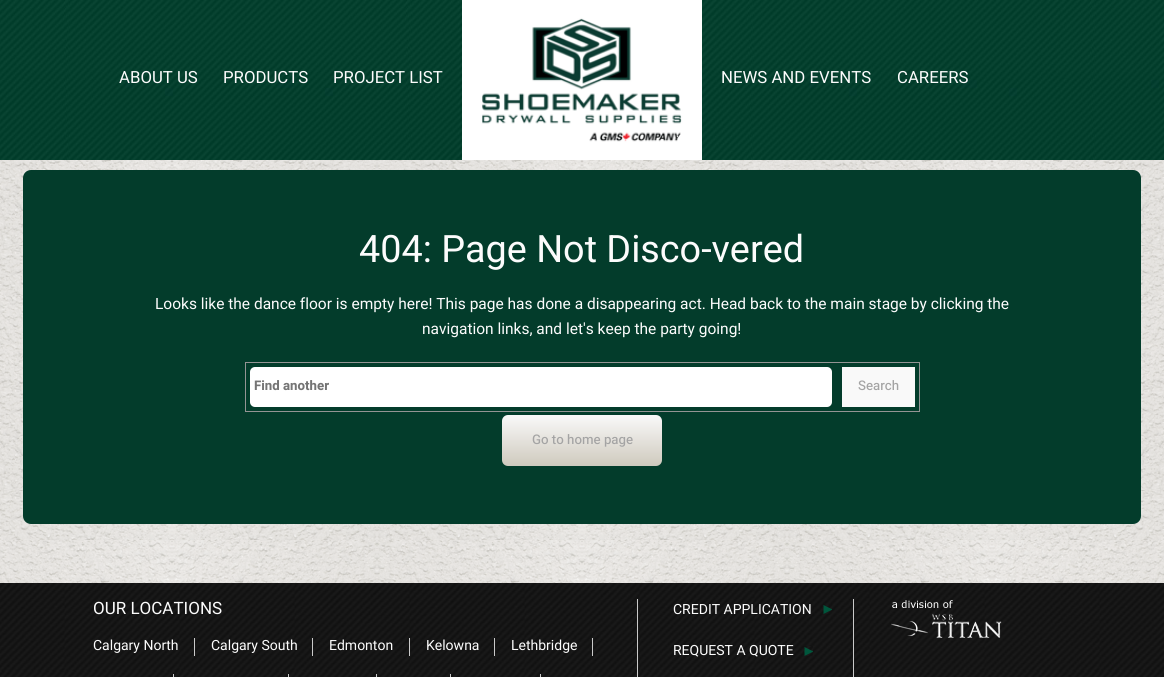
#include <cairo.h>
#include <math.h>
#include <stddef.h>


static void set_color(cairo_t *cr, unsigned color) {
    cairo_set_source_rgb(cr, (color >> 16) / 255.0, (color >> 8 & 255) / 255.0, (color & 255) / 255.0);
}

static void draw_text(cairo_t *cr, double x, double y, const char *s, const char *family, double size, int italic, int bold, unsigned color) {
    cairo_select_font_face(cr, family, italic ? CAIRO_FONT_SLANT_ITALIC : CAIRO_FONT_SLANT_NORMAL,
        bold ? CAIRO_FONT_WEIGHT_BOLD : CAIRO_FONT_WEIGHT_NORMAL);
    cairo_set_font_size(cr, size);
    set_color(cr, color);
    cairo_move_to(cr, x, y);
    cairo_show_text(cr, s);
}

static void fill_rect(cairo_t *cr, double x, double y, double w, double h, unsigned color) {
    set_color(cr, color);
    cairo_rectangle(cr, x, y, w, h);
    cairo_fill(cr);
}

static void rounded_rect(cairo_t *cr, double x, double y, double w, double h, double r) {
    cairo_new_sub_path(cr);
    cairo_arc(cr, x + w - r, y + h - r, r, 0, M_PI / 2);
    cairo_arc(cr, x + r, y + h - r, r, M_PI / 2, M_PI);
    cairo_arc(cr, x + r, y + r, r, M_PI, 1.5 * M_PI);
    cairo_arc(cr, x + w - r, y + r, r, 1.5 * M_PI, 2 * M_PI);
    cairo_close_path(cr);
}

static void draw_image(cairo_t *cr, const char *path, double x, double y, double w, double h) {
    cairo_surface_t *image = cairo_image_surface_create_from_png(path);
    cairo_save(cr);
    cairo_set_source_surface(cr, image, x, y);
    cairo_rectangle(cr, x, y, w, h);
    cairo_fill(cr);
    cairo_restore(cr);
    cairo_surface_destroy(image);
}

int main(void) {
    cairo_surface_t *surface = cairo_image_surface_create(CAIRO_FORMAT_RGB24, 1164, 677);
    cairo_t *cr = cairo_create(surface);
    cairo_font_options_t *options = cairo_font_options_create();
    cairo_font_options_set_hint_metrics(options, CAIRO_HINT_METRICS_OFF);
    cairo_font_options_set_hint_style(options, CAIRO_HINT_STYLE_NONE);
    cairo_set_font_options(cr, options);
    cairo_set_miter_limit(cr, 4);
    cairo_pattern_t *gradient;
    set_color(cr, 0xFFFFFF);
    cairo_paint(cr);
    draw_image(cr, "assets/img1.png", 0, 160, 1164, 423);
    draw_image(cr, "assets/img2.png", 0, 0, 1164, 160);
    draw_text(cr, 119, 83, "ABOUT US", "Heebo", 16.75, 0, 0, 0xFCFCFC);
    draw_text(cr, 223, 83, "PRODUCTS", "Heebo", 16.75, 0, 0, 0xFCFCFC);
    draw_text(cr, 333, 83, "PROJECT LIST", "Heebo", 16.75, 0, 0, 0xFCFCFC);
    draw_image(cr, "assets/img3.png", 462, 0, 240, 160);
    draw_text(cr, 721, 83, "NEWS AND EVENTS", "Heebo", 16.75, 0, 0, 0xFCFCFC);
    draw_text(cr, 897, 83, "CAREERS", "Heebo", 16.75, 0, 0, 0xFCFCFC);
    set_color(cr, 0x033C2B);
    rounded_rect(cr, 23, 170, 1118, 354, 8);
    cairo_fill(cr);
    draw_text(cr, 359, 262, "404: Page Not Disco-vered", "Heebo", 37.75, 0, 0, 0xFCFCFC);
    draw_text(cr, 155, 309, "Looks like the dance floor is empty here! This page has done a disappearing act. Head back to the main stage by clicking the", "Heebo", 15.5, 0, 0, 0xFCFCFC);
    draw_text(cr, 422, 334, "navigation links, and let's keep the party going!", "Heebo", 15.5, 0, 0, 0xFCFCFC);
    cairo_rectangle(cr, 245.5, 362.5, 674, 49);
    set_color(cr, 0x949494);
    cairo_set_line_width(cr, 1);
    cairo_stroke(cr);
    set_color(cr, 0xFFFFFF);
    rounded_rect(cr, 250, 367, 582, 40, 5);
    cairo_fill(cr);
    draw_text(cr, 254, 390, "Find another", "Heebo", 13.25, 0, 1, 0x757575);
    fill_rect(cr, 842, 367, 73, 40, 0xF9F9F9);
    draw_text(cr, 858, 390, "Search", "Heebo Medium", 13.25, 0, 0, 0xA4A4A4);
    gradient = cairo_pattern_create_linear(582, 466, 582, 415);
    cairo_pattern_add_color_stop_rgba(gradient, 0, 0.812, 0.792, 0.745, 1);
    cairo_pattern_add_color_stop_rgba(gradient, 1, 0.976, 0.976, 0.976, 1);
    cairo_set_source(cr, gradient);
    cairo_pattern_destroy(gradient);
    rounded_rect(cr, 502, 415, 160, 51, 6);
    cairo_fill(cr);
    draw_text(cr, 532, 444, "Go to home page", "Heebo Medium", 13.25, 0, 0, 0xA4A4A4);
    draw_image(cr, "assets/img4.png", 0, 583, 1164, 94);
    fill_rect(cr, 637, 599, 1, 78, 0xCACACA);
    draw_text(cr, 93, 614, "OUR LOCATIONS", "Heebo", 17, 0, 0, 0xFCFCFC);
    draw_text(cr, 93, 650, "Calgary North", "Heebo", 14, 0, 0, 0xFCFCFC);
    fill_rect(cr, 194, 638, 1, 18, 0xCACACA);
    draw_text(cr, 211, 650, "Calgary South", "Heebo", 14, 0, 0, 0xFCFCFC);
    fill_rect(cr, 312, 638, 1, 18, 0xCACACA);
    draw_text(cr, 329, 650, "Edmonton", "Heebo", 14, 0, 0, 0xFCFCFC);
    fill_rect(cr, 409, 638, 1, 18, 0xCACACA);
    draw_text(cr, 426, 650, "Kelowna", "Heebo", 14, 0, 0, 0xFCFCFC);
    fill_rect(cr, 494, 638, 1, 18, 0xCACACA);
    draw_text(cr, 511, 650, "Lethbridge", "Heebo", 14, 0, 0, 0xFCFCFC);
    fill_rect(cr, 592, 638, 1, 18, 0xCACACA);
    fill_rect(cr, 173, 674, 1, 3, 0xCACACA);
    fill_rect(cr, 288, 674, 1, 3, 0xCACACA);
    fill_rect(cr, 376, 674, 1, 3, 0xCACACA);
    fill_rect(cr, 450, 674, 1, 3, 0xCACACA);
    fill_rect(cr, 540, 674, 1, 3, 0xCACACA);
    fill_rect(cr, 853, 599, 1, 78, 0xCACACA);
    draw_text(cr, 673, 614, "CREDIT APPLICATION", "Heebo", 14, 0, 0, 0xFCFCFC);
    draw_image(cr, "assets/img5.png", 823, 605, 9, 9);
    draw_text(cr, 673, 655, "REQUEST A QUOTE", "Heebo", 14, 0, 0, 0xFCFCFC);
    draw_image(cr, "assets/img6.png", 804, 646, 9, 10);
    draw_image(cr, "assets/img7.png", 891, 600, 111, 38);
    cairo_surface_write_to_png(surface, "output.png");
    cairo_font_options_destroy(options);
    cairo_destroy(cr);
    cairo_surface_destroy(surface);
    return 0;
}
